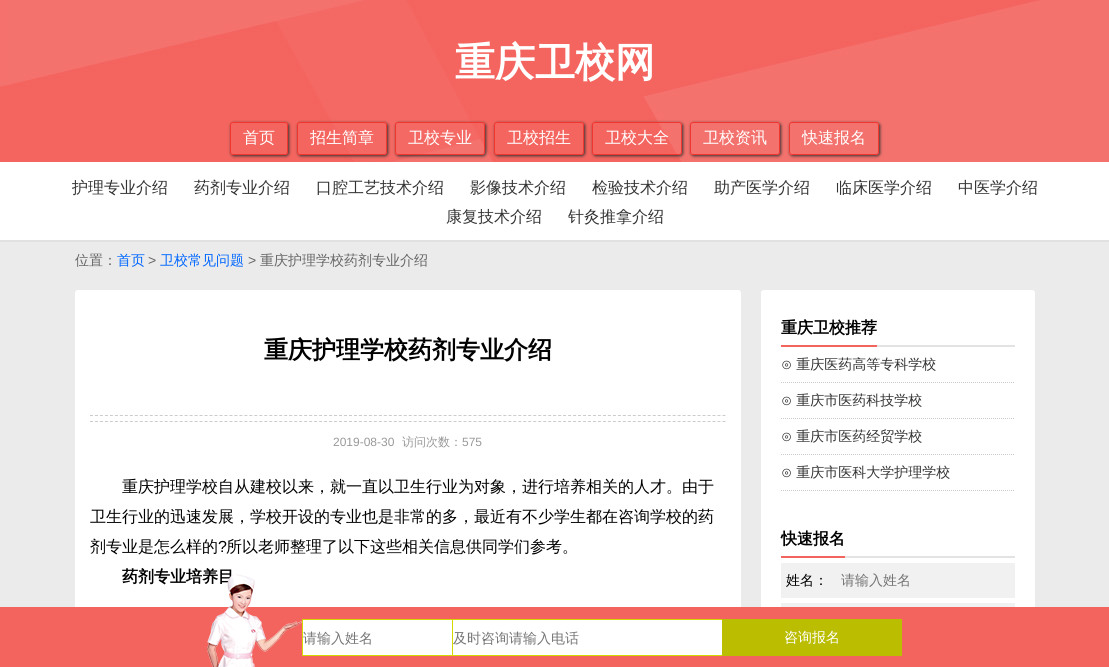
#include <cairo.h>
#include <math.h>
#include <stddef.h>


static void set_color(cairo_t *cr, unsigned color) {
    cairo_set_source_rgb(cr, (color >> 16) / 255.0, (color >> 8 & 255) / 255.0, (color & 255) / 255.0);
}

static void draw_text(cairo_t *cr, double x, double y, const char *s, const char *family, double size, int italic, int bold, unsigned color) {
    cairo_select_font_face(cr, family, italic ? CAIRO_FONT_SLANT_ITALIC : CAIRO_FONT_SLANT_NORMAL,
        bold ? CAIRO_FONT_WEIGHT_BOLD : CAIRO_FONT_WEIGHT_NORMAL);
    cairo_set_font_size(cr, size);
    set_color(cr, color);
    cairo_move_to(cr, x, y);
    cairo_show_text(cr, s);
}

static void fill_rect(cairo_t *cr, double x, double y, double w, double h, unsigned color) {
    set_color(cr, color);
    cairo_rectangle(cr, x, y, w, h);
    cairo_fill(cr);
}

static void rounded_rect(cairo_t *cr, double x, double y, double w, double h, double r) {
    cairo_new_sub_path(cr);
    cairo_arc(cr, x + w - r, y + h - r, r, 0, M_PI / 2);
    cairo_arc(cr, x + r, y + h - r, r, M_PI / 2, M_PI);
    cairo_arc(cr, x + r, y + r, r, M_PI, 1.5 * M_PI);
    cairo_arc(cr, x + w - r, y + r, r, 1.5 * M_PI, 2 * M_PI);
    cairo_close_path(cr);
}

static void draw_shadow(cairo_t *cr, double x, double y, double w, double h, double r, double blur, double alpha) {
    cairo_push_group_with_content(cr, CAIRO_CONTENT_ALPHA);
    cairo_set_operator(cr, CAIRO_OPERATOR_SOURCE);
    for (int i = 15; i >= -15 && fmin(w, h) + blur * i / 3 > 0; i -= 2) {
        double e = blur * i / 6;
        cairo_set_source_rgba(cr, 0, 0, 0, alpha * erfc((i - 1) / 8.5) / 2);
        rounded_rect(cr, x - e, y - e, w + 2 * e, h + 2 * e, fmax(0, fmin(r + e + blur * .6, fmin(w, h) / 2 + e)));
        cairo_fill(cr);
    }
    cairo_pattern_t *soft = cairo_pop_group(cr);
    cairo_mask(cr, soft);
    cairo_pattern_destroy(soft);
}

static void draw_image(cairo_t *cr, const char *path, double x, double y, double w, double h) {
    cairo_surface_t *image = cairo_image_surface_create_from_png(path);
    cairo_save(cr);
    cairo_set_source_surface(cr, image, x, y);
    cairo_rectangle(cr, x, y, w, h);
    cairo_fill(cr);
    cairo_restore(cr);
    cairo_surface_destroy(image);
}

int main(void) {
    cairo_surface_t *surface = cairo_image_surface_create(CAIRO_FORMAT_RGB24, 1109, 667);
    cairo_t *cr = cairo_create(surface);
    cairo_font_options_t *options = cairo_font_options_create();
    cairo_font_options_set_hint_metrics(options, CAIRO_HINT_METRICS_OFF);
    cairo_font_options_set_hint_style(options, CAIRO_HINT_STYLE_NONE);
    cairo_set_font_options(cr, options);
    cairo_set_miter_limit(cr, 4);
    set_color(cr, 0xEBEBEB);
    cairo_paint(cr);
    draw_image(cr, "assets/img1.png", 0, 0, 1109, 162);
    draw_text(cr, 455, 76, "重庆卫校网", "WenQuanYi Zen Hei", 40, 0, 1, 0xFFFFFF);
    cairo_save(cr);
    cairo_set_fill_rule(cr, CAIRO_FILL_RULE_EVEN_ODD);
    cairo_new_path(cr);
    cairo_move_to(cr, 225, 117);
    cairo_line_to(cr, 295, 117);
    cairo_line_to(cr, 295, 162);
    cairo_line_to(cr, 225, 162);
    cairo_close_path(cr);
    cairo_move_to(cr, 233, 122);
    cairo_line_to(cr, 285, 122);
    cairo_curve_to(cr, 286.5, 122, 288, 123.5, 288, 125);
    cairo_line_to(cr, 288, 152);
    cairo_curve_to(cr, 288, 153.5, 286.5, 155, 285, 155);
    cairo_line_to(cr, 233, 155);
    cairo_curve_to(cr, 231.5, 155, 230, 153.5, 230, 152);
    cairo_line_to(cr, 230, 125);
    cairo_curve_to(cr, 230, 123.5, 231.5, 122, 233, 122);
    cairo_close_path(cr);
    cairo_clip(cr);
    set_color(cr, 0x333333);
    draw_shadow(cr, 231, 123, 58, 33, 3, 1.5, 1);
    cairo_restore(cr);
    rounded_rect(cr, 230.5, 122.5, 57, 32, 2.5);
    set_color(cr, 0xF1362F);
    cairo_set_line_width(cr, 1);
    cairo_stroke(cr);
    draw_text(cr, 243, 143, "首页", "WenQuanYi Zen Hei Medium", 16, 0, 0, 0xFFFFFF);
    cairo_save(cr);
    cairo_set_fill_rule(cr, CAIRO_FILL_RULE_EVEN_ODD);
    cairo_new_path(cr);
    cairo_move_to(cr, 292, 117);
    cairo_line_to(cr, 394, 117);
    cairo_line_to(cr, 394, 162);
    cairo_line_to(cr, 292, 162);
    cairo_close_path(cr);
    cairo_move_to(cr, 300, 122);
    cairo_line_to(cr, 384, 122);
    cairo_curve_to(cr, 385.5, 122, 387, 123.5, 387, 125);
    cairo_line_to(cr, 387, 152);
    cairo_curve_to(cr, 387, 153.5, 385.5, 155, 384, 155);
    cairo_line_to(cr, 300, 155);
    cairo_curve_to(cr, 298.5, 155, 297, 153.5, 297, 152);
    cairo_line_to(cr, 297, 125);
    cairo_curve_to(cr, 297, 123.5, 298.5, 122, 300, 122);
    cairo_close_path(cr);
    cairo_clip(cr);
    set_color(cr, 0x333333);
    draw_shadow(cr, 298, 123, 90, 33, 3, 1.5, 1);
    cairo_restore(cr);
    rounded_rect(cr, 297.5, 122.5, 89, 32, 2.5);
    set_color(cr, 0xF1362F);
    cairo_stroke(cr);
    draw_text(cr, 310, 143, "招生简章", "WenQuanYi Zen Hei Medium", 16, 0, 0, 0xFFFFFF);
    cairo_save(cr);
    cairo_set_fill_rule(cr, CAIRO_FILL_RULE_EVEN_ODD);
    cairo_new_path(cr);
    cairo_move_to(cr, 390, 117);
    cairo_line_to(cr, 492, 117);
    cairo_line_to(cr, 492, 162);
    cairo_line_to(cr, 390, 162);
    cairo_close_path(cr);
    cairo_move_to(cr, 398, 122);
    cairo_line_to(cr, 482, 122);
    cairo_curve_to(cr, 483.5, 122, 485, 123.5, 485, 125);
    cairo_line_to(cr, 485, 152);
    cairo_curve_to(cr, 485, 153.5, 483.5, 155, 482, 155);
    cairo_line_to(cr, 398, 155);
    cairo_curve_to(cr, 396.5, 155, 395, 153.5, 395, 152);
    cairo_line_to(cr, 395, 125);
    cairo_curve_to(cr, 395, 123.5, 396.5, 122, 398, 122);
    cairo_close_path(cr);
    cairo_clip(cr);
    set_color(cr, 0x333333);
    draw_shadow(cr, 396, 123, 90, 33, 3, 1.5, 1);
    cairo_restore(cr);
    rounded_rect(cr, 395.5, 122.5, 89, 32, 2.5);
    set_color(cr, 0xF1362F);
    cairo_stroke(cr);
    draw_text(cr, 408, 143, "卫校专业", "WenQuanYi Zen Hei Medium", 16, 0, 0, 0xFFFFFF);
    cairo_save(cr);
    cairo_set_fill_rule(cr, CAIRO_FILL_RULE_EVEN_ODD);
    cairo_new_path(cr);
    cairo_move_to(cr, 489, 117);
    cairo_line_to(cr, 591, 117);
    cairo_line_to(cr, 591, 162);
    cairo_line_to(cr, 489, 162);
    cairo_close_path(cr);
    cairo_move_to(cr, 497, 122);
    cairo_line_to(cr, 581, 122);
    cairo_curve_to(cr, 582.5, 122, 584, 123.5, 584, 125);
    cairo_line_to(cr, 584, 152);
    cairo_curve_to(cr, 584, 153.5, 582.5, 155, 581, 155);
    cairo_line_to(cr, 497, 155);
    cairo_curve_to(cr, 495.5, 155, 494, 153.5, 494, 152);
    cairo_line_to(cr, 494, 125);
    cairo_curve_to(cr, 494, 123.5, 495.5, 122, 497, 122);
    cairo_close_path(cr);
    cairo_clip(cr);
    set_color(cr, 0x333333);
    draw_shadow(cr, 495, 123, 90, 33, 3, 1.5, 1);
    cairo_restore(cr);
    rounded_rect(cr, 494.5, 122.5, 89, 32, 2.5);
    set_color(cr, 0xF1362F);
    cairo_stroke(cr);
    draw_text(cr, 507, 143, "卫校招生", "WenQuanYi Zen Hei Medium", 16, 0, 0, 0xFFFFFF);
    cairo_save(cr);
    cairo_set_fill_rule(cr, CAIRO_FILL_RULE_EVEN_ODD);
    cairo_new_path(cr);
    cairo_move_to(cr, 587, 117);
    cairo_line_to(cr, 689, 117);
    cairo_line_to(cr, 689, 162);
    cairo_line_to(cr, 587, 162);
    cairo_close_path(cr);
    cairo_move_to(cr, 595, 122);
    cairo_line_to(cr, 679, 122);
    cairo_curve_to(cr, 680.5, 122, 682, 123.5, 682, 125);
    cairo_line_to(cr, 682, 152);
    cairo_curve_to(cr, 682, 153.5, 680.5, 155, 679, 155);
    cairo_line_to(cr, 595, 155);
    cairo_curve_to(cr, 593.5, 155, 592, 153.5, 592, 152);
    cairo_line_to(cr, 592, 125);
    cairo_curve_to(cr, 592, 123.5, 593.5, 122, 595, 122);
    cairo_close_path(cr);
    cairo_clip(cr);
    set_color(cr, 0x333333);
    draw_shadow(cr, 593, 123, 90, 33, 3, 1.5, 1);
    cairo_restore(cr);
    rounded_rect(cr, 592.5, 122.5, 89, 32, 2.5);
    set_color(cr, 0xF1362F);
    cairo_stroke(cr);
    draw_text(cr, 605, 143, "卫校大全", "WenQuanYi Zen Hei Medium", 16, 0, 0, 0xFFFFFF);
    cairo_save(cr);
    cairo_set_fill_rule(cr, CAIRO_FILL_RULE_EVEN_ODD);
    cairo_new_path(cr);
    cairo_move_to(cr, 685, 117);
    cairo_line_to(cr, 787, 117);
    cairo_line_to(cr, 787, 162);
    cairo_line_to(cr, 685, 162);
    cairo_close_path(cr);
    cairo_move_to(cr, 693, 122);
    cairo_line_to(cr, 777, 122);
    cairo_curve_to(cr, 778.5, 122, 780, 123.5, 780, 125);
    cairo_line_to(cr, 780, 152);
    cairo_curve_to(cr, 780, 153.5, 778.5, 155, 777, 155);
    cairo_line_to(cr, 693, 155);
    cairo_curve_to(cr, 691.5, 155, 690, 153.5, 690, 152);
    cairo_line_to(cr, 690, 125);
    cairo_curve_to(cr, 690, 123.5, 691.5, 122, 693, 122);
    cairo_close_path(cr);
    cairo_clip(cr);
    set_color(cr, 0x333333);
    draw_shadow(cr, 691, 123, 90, 33, 3, 1.5, 1);
    cairo_restore(cr);
    rounded_rect(cr, 690.5, 122.5, 89, 32, 2.5);
    set_color(cr, 0xF1362F);
    cairo_stroke(cr);
    draw_text(cr, 703, 143, "卫校资讯", "WenQuanYi Zen Hei Medium", 16, 0, 0, 0xFFFFFF);
    cairo_save(cr);
    cairo_set_fill_rule(cr, CAIRO_FILL_RULE_EVEN_ODD);
    cairo_new_path(cr);
    cairo_move_to(cr, 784, 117);
    cairo_line_to(cr, 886, 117);
    cairo_line_to(cr, 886, 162);
    cairo_line_to(cr, 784, 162);
    cairo_close_path(cr);
    cairo_move_to(cr, 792, 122);
    cairo_line_to(cr, 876, 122);
    cairo_curve_to(cr, 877.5, 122, 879, 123.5, 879, 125);
    cairo_line_to(cr, 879, 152);
    cairo_curve_to(cr, 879, 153.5, 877.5, 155, 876, 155);
    cairo_line_to(cr, 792, 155);
    cairo_curve_to(cr, 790.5, 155, 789, 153.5, 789, 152);
    cairo_line_to(cr, 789, 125);
    cairo_curve_to(cr, 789, 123.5, 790.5, 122, 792, 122);
    cairo_close_path(cr);
    cairo_clip(cr);
    set_color(cr, 0x333333);
    draw_shadow(cr, 790, 123, 90, 33, 3, 1.5, 1);
    cairo_restore(cr);
    rounded_rect(cr, 789.5, 122.5, 89, 32, 2.5);
    set_color(cr, 0xF1362F);
    cairo_stroke(cr);
    draw_text(cr, 802, 143, "快速报名", "WenQuanYi Zen Hei Medium", 16, 0, 0, 0xFFFFFF);
    fill_rect(cr, 0, 162, 1109, 78, 0xFFFFFF);
    fill_rect(cr, 0, 240, 1109, 2, 0xE1E1E1);
    draw_text(cr, 72, 193, "护理专业介绍", "WenQuanYi Zen Hei Medium", 16, 0, 0, 0x333333);
    draw_text(cr, 194, 193, "药剂专业介绍", "WenQuanYi Zen Hei Medium", 16, 0, 0, 0x333333);
    draw_text(cr, 316, 193, "口腔工艺技术介绍", "WenQuanYi Zen Hei Medium", 16, 0, 0, 0x333333);
    draw_text(cr, 470, 193, "影像技术介绍", "WenQuanYi Zen Hei Medium", 16, 0, 0, 0x333333);
    draw_text(cr, 592, 193, "检验技术介绍", "WenQuanYi Zen Hei Medium", 16, 0, 0, 0x333333);
    draw_text(cr, 714, 193, "助产医学介绍", "WenQuanYi Zen Hei Medium", 16, 0, 0, 0x333333);
    draw_text(cr, 836, 193, "临床医学介绍", "WenQuanYi Zen Hei Medium", 16, 0, 0, 0x333333);
    draw_text(cr, 958, 193, "中医学介绍", "WenQuanYi Zen Hei Medium", 16, 0, 0, 0x333333);
    draw_text(cr, 446, 222, "康复技术介绍", "WenQuanYi Zen Hei Medium", 16, 0, 0, 0x333333);
    draw_text(cr, 568, 222, "针灸推拿介绍", "WenQuanYi Zen Hei Medium", 16, 0, 0, 0x333333);
    draw_text(cr, 75, 265, "位置：", "WenQuanYi Zen Hei Medium", 14, 0, 0, 0x666666);
    draw_text(cr, 117, 265, "首页", "WenQuanYi Zen Hei Medium", 14, 0, 0, 0x0066FF);
    draw_text(cr, 148, 265, ">", "Liberation Sans", 14, 0, 0, 0x666666);
    draw_text(cr, 160, 265, "卫校常见问题", "WenQuanYi Zen Hei Medium", 14, 0, 0, 0x0066FF);
    draw_text(cr, 248, 265, ">", "Liberation Sans", 14, 0, 0, 0x666666);
    draw_text(cr, 260, 265, "重庆护理学校药剂专业介绍", "WenQuanYi Zen Hei Medium", 14, 0, 0, 0x666666);
    set_color(cr, 0xFFFFFF);
    rounded_rect(cr, 75, 290, 666, 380, 3);
    cairo_fill(cr);
    draw_text(cr, 264, 358, "重庆护理学校药剂专业介绍", "WenQuanYi Zen Hei", 24, 0, 1, 0x000000);
    cairo_new_path(cr);
    cairo_move_to(cr, 90, 415.5);
    cairo_line_to(cr, 726, 415.5);
    set_color(cr, 0xCCCCCC);
    cairo_set_dash(cr, (double[]){3, 1.98}, 2, 0);
    cairo_stroke(cr);
    cairo_new_path(cr);
    cairo_move_to(cr, 90, 421.5);
    cairo_line_to(cr, 726, 421.5);
    cairo_stroke(cr);
    draw_text(cr, 333, 446, "2019-08-30", "Liberation Sans", 12, 0, 0, 0x999999);
    draw_text(cr, 402, 446, "访问次数：", "WenQuanYi Zen Hei Medium", 12, 0, 0, 0x999999);
    draw_text(cr, 462, 446, "575", "Liberation Sans", 12, 0, 0, 0x999999);
    draw_text(cr, 122, 492, "重庆护理学校自从建校以来，就一直以卫生行业为对象，进行培养相关的人才。由于", "WenQuanYi Zen Hei Medium", 16, 0, 0, 0x000000);
    draw_text(cr, 90, 522, "卫生行业的迅速发展，学校开设的专业也是非常的多，最近有不少学生都在咨询学校的药", "WenQuanYi Zen Hei Medium", 16, 0, 0, 0x000000);
    draw_text(cr, 90, 552, "剂专业是怎么样的", "WenQuanYi Zen Hei Medium", 16, 0, 0, 0x000000);
    draw_text(cr, 218, 552, "?", "Liberation Sans", 16, 0, 0, 0x000000);
    draw_text(cr, 226, 552, "所以老师整理了以下这些相关信息供同学们参考。", "WenQuanYi Zen Hei Medium", 16, 0, 0, 0x000000);
    draw_text(cr, 122, 582, "药剂专业培养目", "WenQuanYi Zen Hei", 16, 0, 1, 0x000000);
    set_color(cr, 0xFFFFFF);
    rounded_rect(cr, 761, 290, 274, 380, 3);
    cairo_fill(cr);
    fill_rect(cr, 877, 345, 138, 2, 0xE3E3E3);
    fill_rect(cr, 781, 345, 96, 2, 0xF4645F);
    draw_text(cr, 781, 333, "重庆卫校推荐", "WenQuanYi Zen Hei", 16, 0, 1, 0x000000);
    cairo_new_path(cr);
    cairo_move_to(cr, 781, 382.5);
    cairo_line_to(cr, 1015, 382.5);
    set_color(cr, 0xCCCCCC);
    cairo_set_dash(cr, (double[]){1, 1}, 2, 0);
    cairo_stroke(cr);
    draw_text(cr, 781, 369, "⊙ 重庆医药高等专科学校", "WenQuanYi Zen Hei Medium", 14, 0, 0, 0x333333);
    cairo_new_path(cr);
    cairo_move_to(cr, 781, 418.5);
    cairo_line_to(cr, 1015, 418.5);
    set_color(cr, 0xCCCCCC);
    cairo_stroke(cr);
    draw_text(cr, 781, 405, "⊙ 重庆市医药科技学校", "WenQuanYi Zen Hei Medium", 14, 0, 0, 0x333333);
    cairo_new_path(cr);
    cairo_move_to(cr, 781, 454.5);
    cairo_line_to(cr, 1015, 454.5);
    set_color(cr, 0xCCCCCC);
    cairo_stroke(cr);
    draw_text(cr, 781, 441, "⊙ 重庆市医药经贸学校", "WenQuanYi Zen Hei Medium", 14, 0, 0, 0x333333);
    cairo_new_path(cr);
    cairo_move_to(cr, 781, 490.5);
    cairo_line_to(cr, 1015, 490.5);
    set_color(cr, 0xCCCCCC);
    cairo_stroke(cr);
    draw_text(cr, 781, 477, "⊙ 重庆市医科大学护理学校", "WenQuanYi Zen Hei Medium", 14, 0, 0, 0x333333);
    fill_rect(cr, 845, 556, 170, 2, 0xE3E3E3);
    fill_rect(cr, 781, 556, 64, 2, 0xF4645F);
    draw_text(cr, 781, 544, "快速报名", "WenQuanYi Zen Hei", 16, 0, 1, 0x000000);
    fill_rect(cr, 781, 563, 234, 35, 0xF1F1F1);
    draw_text(cr, 786, 585, "姓名：", "WenQuanYi Zen Hei Medium", 14, 0, 0, 0x000000);
    draw_text(cr, 841, 585, "请输入姓名", "WenQuanYi Zen Hei Medium", 14, 0, 0, 0x757575);
    fill_rect(cr, 781, 603, 234, 4, 0xF1F1F1);
    fill_rect(cr, 0, 607, 1109, 60, 0xF4645F);
    draw_image(cr, "assets/img2.png", 207, 574, 95, 93);
    fill_rect(cr, 303, 620, 149, 35, 0xFFFFFF);
    cairo_rectangle(cr, 302.5, 619.5, 151, 36);
    set_color(cr, 0xD5D800);
    cairo_set_dash(cr, NULL, 0, 0);
    cairo_stroke(cr);
    draw_text(cr, 303, 643, "请输入姓名", "WenQuanYi Zen Hei Medium", 14, 0, 0, 0x757575);
    fill_rect(cr, 453, 620, 269, 35, 0xFFFFFF);
    cairo_rectangle(cr, 452.5, 619.5, 271, 36);
    set_color(cr, 0xD5D800);
    cairo_stroke(cr);
    draw_text(cr, 453, 643, "及时咨询请输入电话", "WenQuanYi Zen Hei Medium", 14, 0, 0, 0x757575);
    fill_rect(cr, 722, 619, 180, 37, 0xBBBD00);
    draw_text(cr, 784, 642, "咨询报名", "WenQuanYi Zen Hei Medium", 14, 0, 0, 0xFFFFFF);
    cairo_surface_write_to_png(surface, "output.png");
    cairo_font_options_destroy(options);
    cairo_destroy(cr);
    cairo_surface_destroy(surface);
    return 0;
}
